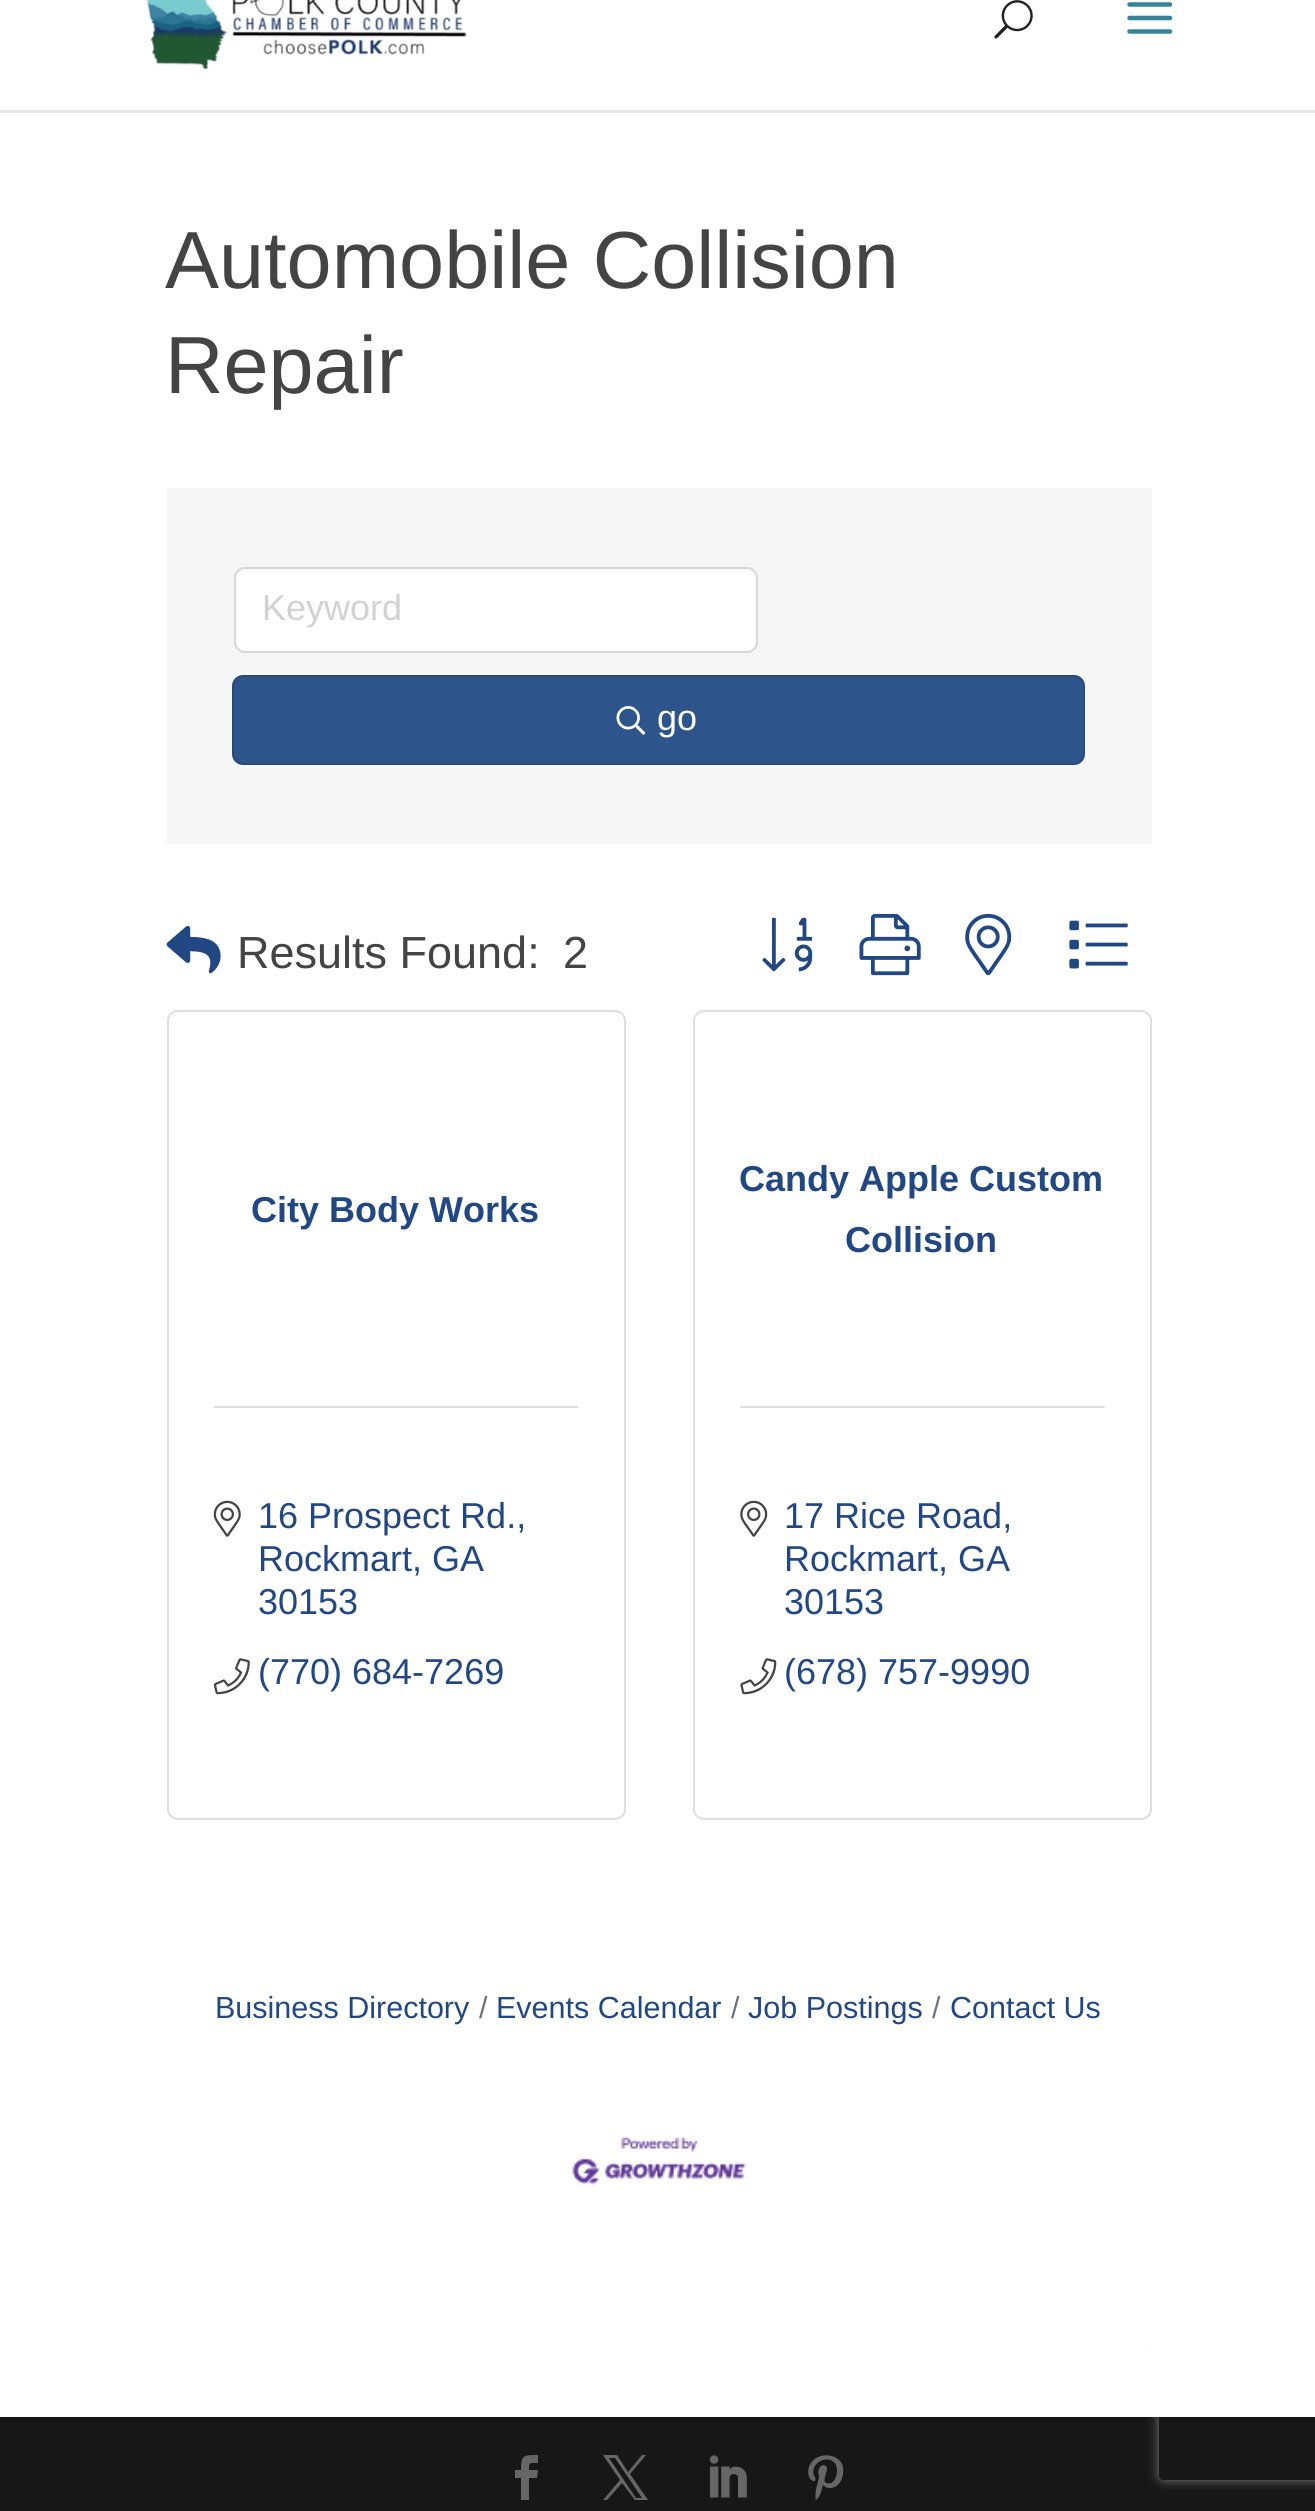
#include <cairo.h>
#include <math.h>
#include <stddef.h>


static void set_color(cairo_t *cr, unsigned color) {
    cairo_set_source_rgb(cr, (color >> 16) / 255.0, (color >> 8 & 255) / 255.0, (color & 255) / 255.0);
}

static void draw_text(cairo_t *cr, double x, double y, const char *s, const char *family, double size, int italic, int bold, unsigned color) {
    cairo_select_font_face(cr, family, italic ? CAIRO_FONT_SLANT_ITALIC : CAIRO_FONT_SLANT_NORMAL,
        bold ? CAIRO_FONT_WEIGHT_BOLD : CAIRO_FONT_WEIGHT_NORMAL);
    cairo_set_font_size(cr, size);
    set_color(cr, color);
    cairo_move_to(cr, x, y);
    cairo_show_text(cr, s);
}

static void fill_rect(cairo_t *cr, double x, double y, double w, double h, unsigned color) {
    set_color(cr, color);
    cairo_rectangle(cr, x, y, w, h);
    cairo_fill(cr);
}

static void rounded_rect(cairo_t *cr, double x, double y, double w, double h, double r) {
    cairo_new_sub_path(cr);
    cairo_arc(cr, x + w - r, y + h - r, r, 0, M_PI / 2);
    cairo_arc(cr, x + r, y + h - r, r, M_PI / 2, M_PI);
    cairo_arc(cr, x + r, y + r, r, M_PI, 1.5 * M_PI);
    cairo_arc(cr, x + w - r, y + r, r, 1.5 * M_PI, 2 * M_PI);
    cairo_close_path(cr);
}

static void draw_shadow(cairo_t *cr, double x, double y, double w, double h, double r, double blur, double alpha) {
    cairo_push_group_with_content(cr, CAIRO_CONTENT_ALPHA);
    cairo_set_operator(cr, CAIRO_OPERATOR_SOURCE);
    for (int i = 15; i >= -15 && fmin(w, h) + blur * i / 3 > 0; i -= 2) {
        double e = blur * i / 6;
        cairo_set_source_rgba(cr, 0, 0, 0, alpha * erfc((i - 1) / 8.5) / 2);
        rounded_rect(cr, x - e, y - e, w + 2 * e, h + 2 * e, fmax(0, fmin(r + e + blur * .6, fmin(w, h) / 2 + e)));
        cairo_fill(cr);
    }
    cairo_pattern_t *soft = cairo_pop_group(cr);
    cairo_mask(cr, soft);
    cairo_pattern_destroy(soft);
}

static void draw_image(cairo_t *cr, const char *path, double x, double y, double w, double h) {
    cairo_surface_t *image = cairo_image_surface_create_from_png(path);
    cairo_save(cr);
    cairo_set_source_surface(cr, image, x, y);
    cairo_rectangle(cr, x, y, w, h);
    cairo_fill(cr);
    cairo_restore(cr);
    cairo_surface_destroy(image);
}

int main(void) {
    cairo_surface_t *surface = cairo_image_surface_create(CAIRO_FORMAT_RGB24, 1315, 2511);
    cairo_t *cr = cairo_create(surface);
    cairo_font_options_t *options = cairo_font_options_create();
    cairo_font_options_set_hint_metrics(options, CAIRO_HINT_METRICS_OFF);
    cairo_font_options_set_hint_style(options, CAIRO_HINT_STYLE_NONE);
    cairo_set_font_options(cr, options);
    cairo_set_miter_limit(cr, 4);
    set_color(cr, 0xFFFFFF);
    cairo_paint(cr);
    fill_rect(cr, 0, 110, 1315, 3, 0xE6E6E6);
    draw_image(cr, "assets/img1.png", 146, 0, 321, 69);
    draw_image(cr, "assets/img2.png", 994, 0, 39, 39);
    draw_image(cr, "assets/img3.png", 1127, 2, 46, 32);
    fill_rect(cr, 0, 2417, 1315, 94, 0x171717);
    cairo_save(cr);
    cairo_set_fill_rule(cr, CAIRO_FILL_RULE_EVEN_ODD);
    cairo_new_path(cr);
    cairo_move_to(cr, 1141, 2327);
    cairo_line_to(cr, 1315, 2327);
    cairo_line_to(cr, 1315, 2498);
    cairo_line_to(cr, 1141, 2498);
    cairo_close_path(cr);
    cairo_move_to(cr, 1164, 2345);
    cairo_line_to(cr, 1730, 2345);
    cairo_curve_to(cr, 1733, 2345, 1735, 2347, 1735, 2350);
    cairo_line_to(cr, 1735, 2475);
    cairo_curve_to(cr, 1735, 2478, 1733, 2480, 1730, 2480);
    cairo_line_to(cr, 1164, 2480);
    cairo_curve_to(cr, 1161, 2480, 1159, 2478, 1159, 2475);
    cairo_line_to(cr, 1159, 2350);
    cairo_curve_to(cr, 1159, 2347, 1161, 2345, 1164, 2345);
    cairo_close_path(cr);
    cairo_clip(cr);
    set_color(cr, 0x808080);
    draw_shadow(cr, 1159, 2345, 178, 135, 5, 5.5, 1);
    cairo_restore(cr);
    fill_rect(cr, 1148, 2334, 167, 83, 0xFFFFFF);
    draw_text(cr, 165, 288, "Automobile Collision", "Liberation Sans", 81, 0, 0, 0x444444);
    draw_text(cr, 165, 393, "Repair", "Liberation Sans", 81, 0, 0, 0x444444);
    fill_rect(cr, 167, 488, 985, 356, 0xF6F6F6);
    set_color(cr, 0xFFFFFF);
    rounded_rect(cr, 236, 569, 520, 81, 9);
    cairo_fill(cr);
    rounded_rect(cr, 235, 568, 522, 84, 10);
    set_color(cr, 0xD7D7D7);
    cairo_stroke(cr);
    draw_text(cr, 262, 620, "Keyword", "Liberation Sans", 36, 0, 0, 0xD2D2D2);
    set_color(cr, 0x2D548B);
    rounded_rect(cr, 232, 675, 853, 90, 11);
    cairo_fill(cr);
    rounded_rect(cr, 233, 676, 851, 88, 10);
    cairo_set_source_rgba(cr, 0, 0, 0, 0.12);
    cairo_stroke(cr);
    draw_image(cr, "assets/img4.png", 616, 706, 30, 29);
    draw_text(cr, 657, 730, "go", "Liberation Sans", 36, 0, 0, 0xFFFFFF);
    draw_image(cr, "assets/img5.png", 166, 925, 55, 49);
    draw_text(cr, 237, 968, "Results Found:", "Liberation Sans", 45, 0, 0, 0x444444);
    draw_text(cr, 563, 968, "2", "Liberation Sans", 45, 0, 0, 0x444444);
    draw_image(cr, "assets/img6.png", 762, 917, 51, 55);
    draw_image(cr, "assets/img7.png", 859, 913, 62, 63);
    draw_image(cr, "assets/img8.png", 965, 913, 47, 63);
    draw_image(cr, "assets/img9.png", 1069, 920, 59, 49);
    rounded_rect(cr, 168, 1011, 457, 808, 10);
    set_color(cr, 0xDFDFDF);
    cairo_stroke(cr);
    draw_text(cr, 251, 1222, "City Body Works", "Liberation Sans", 36, 0, 1, 0x224884);
    fill_rect(cr, 214, 1406, 364, 2, 0xDFDFDF);
    draw_image(cr, "assets/img10.png", 213, 1500, 28, 37);
    draw_text(cr, 258, 1528, "16 Prospect Rd.,", "Liberation Sans", 36, 0, 0, 0x224884);
    draw_text(cr, 258, 1571, "Rockmart, GA", "Liberation Sans", 36, 0, 0, 0x224884);
    draw_text(cr, 258, 1614, "30153", "Liberation Sans", 36, 0, 0, 0x224884);
    draw_image(cr, "assets/img11.png", 213, 1658, 37, 37);
    draw_text(cr, 258, 1684, "(770) 684-7269", "Liberation Sans", 36, 0, 0, 0x224884);
    rounded_rect(cr, 694, 1011, 457, 808, 10);
    set_color(cr, 0xDFDFDF);
    cairo_stroke(cr);
    draw_text(cr, 739, 1191, "Candy Apple Custom", "Liberation Sans", 36, 0, 1, 0x224884);
    draw_text(cr, 845, 1252, "Collision", "Liberation Sans", 36, 0, 1, 0x224884);
    fill_rect(cr, 740, 1406, 365, 2, 0xDFDFDF);
    draw_image(cr, "assets/img12.png", 740, 1500, 28, 37);
    draw_text(cr, 784, 1528, "17 Rice Road,", "Liberation Sans", 36, 0, 0, 0x224884);
    draw_text(cr, 784, 1571, "Rockmart, GA", "Liberation Sans", 36, 0, 0, 0x224884);
    draw_text(cr, 784, 1614, "30153", "Liberation Sans", 36, 0, 0, 0x224884);
    draw_image(cr, "assets/img13.png", 740, 1658, 37, 37);
    draw_text(cr, 784, 1684, "(678) 757-9990", "Liberation Sans", 36, 0, 0, 0x224884);
    draw_text(cr, 215, 2018, "Business Directory", "Liberation Sans", 30.5, 0, 0, 0x224884);
    draw_text(cr, 479, 2018, "/", "Liberation Sans", 30.5, 0, 0, 0x6C757D);
    draw_text(cr, 496, 2018, "Events Calendar", "Liberation Sans", 30.5, 0, 0, 0x224884);
    draw_text(cr, 731, 2018, "/", "Liberation Sans", 30.5, 0, 0, 0x6C757D);
    draw_text(cr, 748, 2018, "Job Postings", "Liberation Sans", 30.5, 0, 0, 0x224884);
    draw_text(cr, 932, 2018, "/", "Liberation Sans", 30.5, 0, 0, 0x6C757D);
    draw_text(cr, 950, 2018, "Contact Us", "Liberation Sans", 30.5, 0, 0, 0x224884);
    draw_image(cr, "assets/img14.png", 572, 2137, 174, 48);
    set_color(cr, 0x666666);
    cairo_new_path(cr);
    cairo_move_to(cr, 521, 2500);
    cairo_line_to(cr, 529, 2500);
    cairo_line_to(cr, 529, 2478);
    cairo_line_to(cr, 537, 2478);
    cairo_line_to(cr, 538, 2470);
    cairo_line_to(cr, 529, 2470);
    cairo_curve_to(cr, 529, 2462, 529, 2463, 538, 2463);
    cairo_line_to(cr, 538, 2455);
    cairo_curve_to(cr, 523, 2455, 521, 2455, 521, 2470);
    cairo_line_to(cr, 515, 2470);
    cairo_line_to(cr, 515, 2478);
    cairo_line_to(cr, 521, 2478);
    cairo_close_path(cr);
    cairo_fill(cr);
    cairo_new_path(cr);
    cairo_move_to(cr, 603, 2455);
    cairo_line_to(cr, 620, 2480);
    cairo_line_to(cr, 603, 2500);
    cairo_line_to(cr, 607, 2500);
    cairo_line_to(cr, 622, 2483);
    cairo_line_to(cr, 635, 2500);
    cairo_line_to(cr, 648, 2500);
    cairo_line_to(cr, 630, 2474);
    cairo_line_to(cr, 646, 2455);
    cairo_line_to(cr, 642, 2455);
    cairo_line_to(cr, 628, 2472);
    cairo_line_to(cr, 617, 2455);
    cairo_close_path(cr);
    cairo_move_to(cr, 609, 2458);
    cairo_line_to(cr, 615, 2458);
    cairo_line_to(cr, 642, 2498);
    cairo_line_to(cr, 636, 2498);
    cairo_close_path(cr);
    cairo_fill(cr);
    draw_image(cr, "assets/img15.png", 709, 2455, 38, 43);
    draw_image(cr, "assets/img16.png", 808, 2455, 36, 46);
    cairo_surface_write_to_png(surface, "output.png");
    cairo_font_options_destroy(options);
    cairo_destroy(cr);
    cairo_surface_destroy(surface);
    return 0;
}
